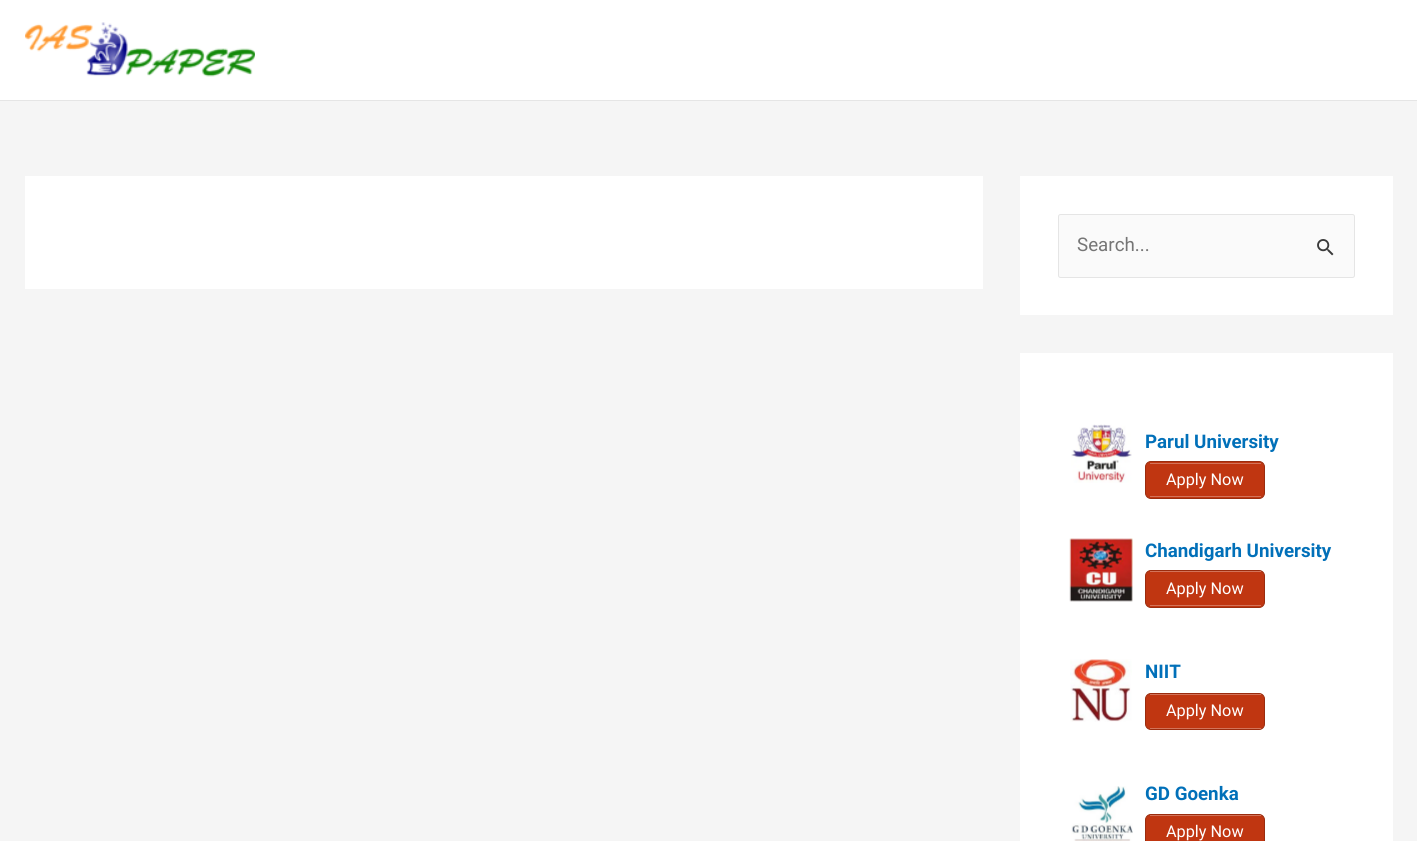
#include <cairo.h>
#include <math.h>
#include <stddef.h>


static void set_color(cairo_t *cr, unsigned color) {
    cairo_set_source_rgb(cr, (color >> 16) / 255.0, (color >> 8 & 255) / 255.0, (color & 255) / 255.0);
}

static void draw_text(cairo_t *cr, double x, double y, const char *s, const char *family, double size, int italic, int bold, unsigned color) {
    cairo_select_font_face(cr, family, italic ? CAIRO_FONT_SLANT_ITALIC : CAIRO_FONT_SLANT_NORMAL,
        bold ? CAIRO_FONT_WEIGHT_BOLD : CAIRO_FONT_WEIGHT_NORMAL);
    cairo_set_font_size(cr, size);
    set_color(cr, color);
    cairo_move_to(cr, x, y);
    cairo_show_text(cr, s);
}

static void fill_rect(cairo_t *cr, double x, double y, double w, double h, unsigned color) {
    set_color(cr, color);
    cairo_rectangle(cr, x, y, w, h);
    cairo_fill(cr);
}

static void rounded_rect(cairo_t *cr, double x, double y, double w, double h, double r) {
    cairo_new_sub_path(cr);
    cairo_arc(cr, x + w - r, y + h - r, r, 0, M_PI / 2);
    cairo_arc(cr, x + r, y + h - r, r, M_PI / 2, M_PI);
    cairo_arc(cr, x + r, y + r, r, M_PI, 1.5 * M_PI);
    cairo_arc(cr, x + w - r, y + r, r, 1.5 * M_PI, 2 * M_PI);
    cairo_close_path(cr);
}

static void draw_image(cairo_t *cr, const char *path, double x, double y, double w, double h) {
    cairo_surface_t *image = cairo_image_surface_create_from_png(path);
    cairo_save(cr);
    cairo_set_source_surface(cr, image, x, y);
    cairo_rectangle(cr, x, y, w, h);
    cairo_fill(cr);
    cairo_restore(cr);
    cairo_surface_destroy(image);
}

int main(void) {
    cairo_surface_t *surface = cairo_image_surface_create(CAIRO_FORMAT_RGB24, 1417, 841);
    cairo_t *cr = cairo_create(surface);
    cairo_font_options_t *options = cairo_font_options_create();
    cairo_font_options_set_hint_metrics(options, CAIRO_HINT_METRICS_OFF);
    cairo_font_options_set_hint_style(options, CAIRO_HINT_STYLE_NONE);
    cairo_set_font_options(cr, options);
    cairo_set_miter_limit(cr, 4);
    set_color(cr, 0xF5F5F5);
    cairo_paint(cr);
    fill_rect(cr, 0, 0, 1417, 100, 0xFFFFFF);
    fill_rect(cr, 0, 100, 1417, 1, 0xE5E5E5);
    draw_image(cr, "assets/img1.png", 25, 22, 230, 55);
    fill_rect(cr, 25, 176, 958, 113, 0xFFFFFF);
    fill_rect(cr, 1020, 176, 373, 139, 0xFFFFFF);
    set_color(cr, 0xFAFAFA);
    rounded_rect(cr, 1058.5, 214.5, 296, 63, 2);
    cairo_fill_preserve(cr);
    set_color(cr, 0xE5E5E5);
    cairo_set_line_width(cr, 1);
    cairo_stroke(cr);
    draw_text(cr, 1077, 251, "Search...", "Roboto", 18.75, 0, 0, 0x757575);
    draw_image(cr, "assets/img2.png", 1317, 239, 17, 17);
    fill_rect(cr, 1020, 353, 373, 488, 0xFFFFFF);
    draw_image(cr, "assets/img3.png", 1071, 424, 61, 59);
    draw_text(cr, 1145, 448, "Parul University", "Roboto", 18.75, 0, 1, 0x0170B9);
    set_color(cr, 0xC03611);
    rounded_rect(cr, 1145.5, 461.5, 119, 37, 5.5);
    cairo_fill_preserve(cr);
    set_color(cr, 0x9A2C0E);
    cairo_stroke(cr);
    fill_rect(cr, 1150, 463, 111, 1, 0xD37359);
    fill_rect(cr, 1150, 496, 111, 1, 0xD37359);
    draw_text(cr, 1166, 485, "Apply Now", "Roboto", 16.25, 0, 0, 0xFFFFFF);
    draw_image(cr, "assets/img4.png", 1069, 538, 64, 64);
    draw_text(cr, 1145, 557, "Chandigarh University", "Roboto", 18.75, 0, 1, 0x0170B9);
    set_color(cr, 0xC03611);
    rounded_rect(cr, 1145.5, 570.5, 119, 37, 5.5);
    cairo_fill_preserve(cr);
    set_color(cr, 0x9A2C0E);
    cairo_stroke(cr);
    fill_rect(cr, 1150, 571, 111, 1, 0xD37359);
    fill_rect(cr, 1150, 605, 111, 1, 0xD37359);
    draw_text(cr, 1166, 594, "Apply Now", "Roboto", 16.25, 0, 0, 0xFFFFFF);
    draw_image(cr, "assets/img5.png", 1070, 659, 62, 63);
    draw_text(cr, 1145, 678, "NIIT", "Roboto", 18.75, 0, 1, 0x0170B9);
    set_color(cr, 0xC03611);
    rounded_rect(cr, 1145.5, 693.5, 119, 36, 5.5);
    cairo_fill_preserve(cr);
    set_color(cr, 0x9A2C0E);
    cairo_stroke(cr);
    fill_rect(cr, 1150, 694, 111, 1, 0xD37359);
    fill_rect(cr, 1150, 728, 111, 1, 0xD37359);
    draw_text(cr, 1166, 716, "Apply Now", "Roboto", 16.25, 0, 0, 0xFFFFFF);
    draw_image(cr, "assets/img6.png", 1071, 786, 62, 55);
    draw_text(cr, 1145, 800, "GD Goenka", "Roboto", 18.75, 0, 1, 0x0170B9);
    set_color(cr, 0xC03611);
    rounded_rect(cr, 1145.5, 814.5, 119, 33, 5.5);
    cairo_fill_preserve(cr);
    set_color(cr, 0x9A2C0E);
    cairo_stroke(cr);
    fill_rect(cr, 1150, 815, 111, 1, 0xD37359);
    draw_text(cr, 1166, 837, "Apply Now", "Roboto", 16.25, 0, 0, 0xFFFFFF);
    cairo_surface_write_to_png(surface, "output.png");
    cairo_font_options_destroy(options);
    cairo_destroy(cr);
    cairo_surface_destroy(surface);
    return 0;
}
